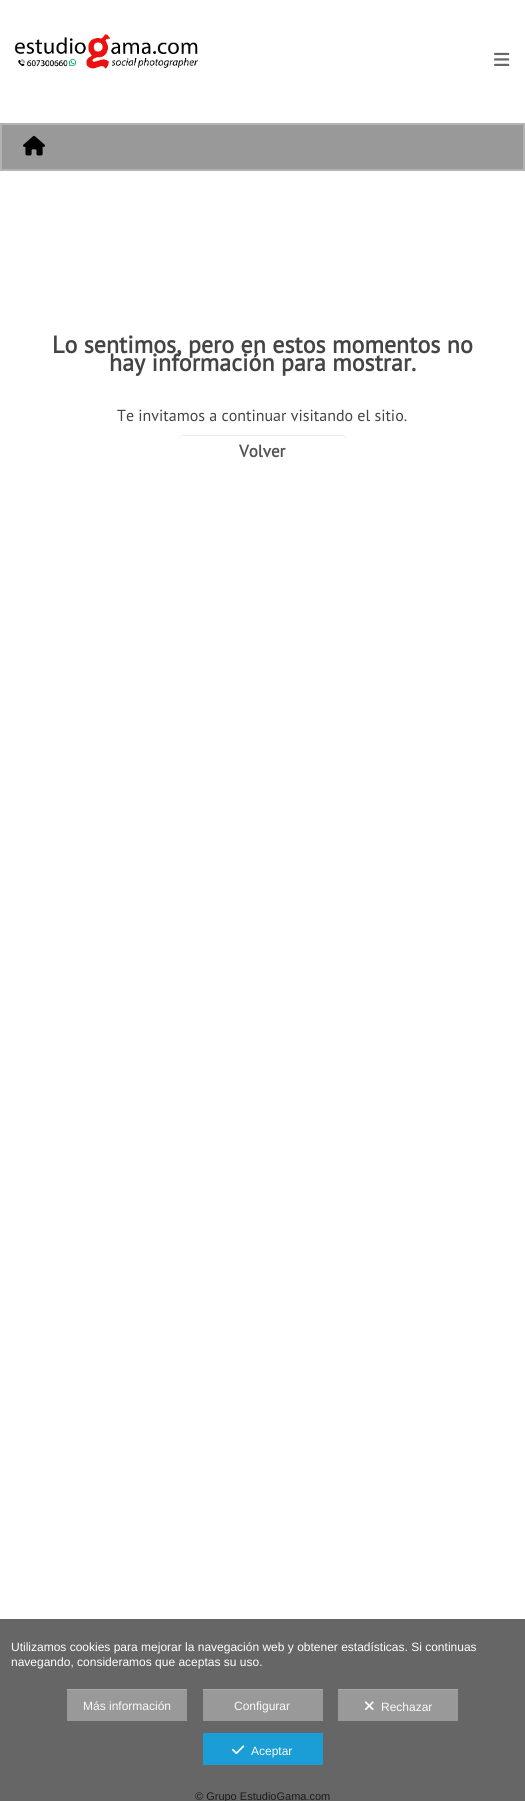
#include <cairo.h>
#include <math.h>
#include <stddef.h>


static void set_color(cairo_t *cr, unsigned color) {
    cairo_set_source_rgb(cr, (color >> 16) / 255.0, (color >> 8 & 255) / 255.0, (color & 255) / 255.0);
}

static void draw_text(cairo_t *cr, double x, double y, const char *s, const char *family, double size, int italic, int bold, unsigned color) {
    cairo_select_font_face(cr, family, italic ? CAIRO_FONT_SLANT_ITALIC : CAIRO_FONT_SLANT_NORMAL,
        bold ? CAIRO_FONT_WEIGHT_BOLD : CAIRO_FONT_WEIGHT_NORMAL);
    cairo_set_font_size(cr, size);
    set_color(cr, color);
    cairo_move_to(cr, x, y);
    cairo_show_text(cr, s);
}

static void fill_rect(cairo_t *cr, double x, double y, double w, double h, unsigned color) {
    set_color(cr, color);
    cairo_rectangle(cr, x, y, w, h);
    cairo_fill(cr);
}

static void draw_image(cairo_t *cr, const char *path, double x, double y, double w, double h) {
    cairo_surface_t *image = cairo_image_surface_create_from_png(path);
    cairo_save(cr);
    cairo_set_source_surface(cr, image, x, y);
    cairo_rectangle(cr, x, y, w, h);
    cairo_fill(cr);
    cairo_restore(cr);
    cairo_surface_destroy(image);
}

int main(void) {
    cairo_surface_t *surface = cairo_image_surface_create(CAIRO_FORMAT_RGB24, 525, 1801);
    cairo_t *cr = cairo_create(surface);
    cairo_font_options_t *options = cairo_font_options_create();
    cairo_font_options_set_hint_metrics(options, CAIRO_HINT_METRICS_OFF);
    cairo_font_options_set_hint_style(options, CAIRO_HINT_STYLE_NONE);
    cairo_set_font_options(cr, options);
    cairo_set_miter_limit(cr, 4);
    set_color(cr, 0xFFFFFF);
    cairo_paint(cr);
    fill_rect(cr, 0, 1619, 525, 182, 0x666666);
    draw_image(cr, "assets/img1.png", 14, 34, 184, 35);
    draw_image(cr, "assets/img2.png", 494, 52, 16, 14);
    fill_rect(cr, 0, 123, 525, 48, 0xB3B3B3);
    fill_rect(cr, 2, 125, 521, 44, 0x999999);
    draw_image(cr, "assets/img3.png", 23, 135, 22, 21);
    draw_text(cr, 52, 353, "Lo sentimos, pero en estos momentos no", "PT Sans", 24, 0, 1, 0x444444);
    draw_text(cr, 109, 371, "hay información para mostrar.", "PT Sans", 24, 0, 1, 0x444444);
    draw_text(cr, 117, 421, "Te invitamos a continuar visitando el sitio.", "PT Sans", 16, 0, 0, 0x444444);
    set_color(cr, 0xECECEC);
    cairo_new_path(cr);
    cairo_move_to(cr, 183, 436);
    cairo_line_to(cr, 343, 436);
    cairo_curve_to(cr, 345, 436, 347, 438, 347, 440);
    cairo_line_to(cr, 347, 439);
    cairo_curve_to(cr, 347, 437, 345, 435, 343, 435);
    cairo_line_to(cr, 183, 435);
    cairo_curve_to(cr, 181, 435, 179, 437, 179, 439);
    cairo_line_to(cr, 179, 440);
    cairo_curve_to(cr, 179, 438, 181, 436, 183, 436);
    cairo_close_path(cr);
    cairo_fill(cr);
    draw_text(cr, 239, 457, "Volver", "PT Sans", 17, 0, 1, 0x555555);
    draw_text(cr, 11, 1651, "Utilizamos cookies para mejorar la navegación web y obtener estadísticas. Si continuas", "Liberation Sans", 12, 0, 0, 0xFFFFFF);
    draw_text(cr, 11, 1666, "navegando, consideramos que aceptas su uso.", "Liberation Sans", 12, 0, 0, 0xFFFFFF);
    fill_rect(cr, 67, 1690, 120, 31, 0x999999);
    fill_rect(cr, 67, 1689, 120, 1, 0xA8A8A8);
    draw_text(cr, 83, 1710, "Más información", "Liberation Sans", 12, 0, 0, 0xF9F9F9);
    fill_rect(cr, 203, 1690, 120, 31, 0x999999);
    fill_rect(cr, 203, 1689, 120, 1, 0xA8A8A8);
    draw_text(cr, 234, 1710, "Configurar", "Liberation Sans", 12, 0, 0, 0xF9F9F9);
    fill_rect(cr, 338, 1690, 120, 31, 0x999999);
    fill_rect(cr, 338, 1689, 120, 1, 0xA8A8A8);
    draw_image(cr, "assets/img4.png", 365, 1701, 9, 9);
    draw_text(cr, 381, 1711, "Rechazar", "Liberation Sans", 12, 0, 0, 0xF9F9F9);
    fill_rect(cr, 203, 1733, 120, 32, 0x1A9ED5);
    draw_image(cr, "assets/img5.png", 232, 1745, 13, 10);
    draw_text(cr, 251, 1755, "Aceptar", "Liberation Sans", 12, 0, 0, 0xF9F9F9);
    draw_text(cr, 195, 1800, "© Grupo EstudioGama.com", "Liberation Sans", 11, 0, 0, 0x1B1B1B);
    cairo_surface_write_to_png(surface, "output.png");
    cairo_font_options_destroy(options);
    cairo_destroy(cr);
    cairo_surface_destroy(surface);
    return 0;
}
